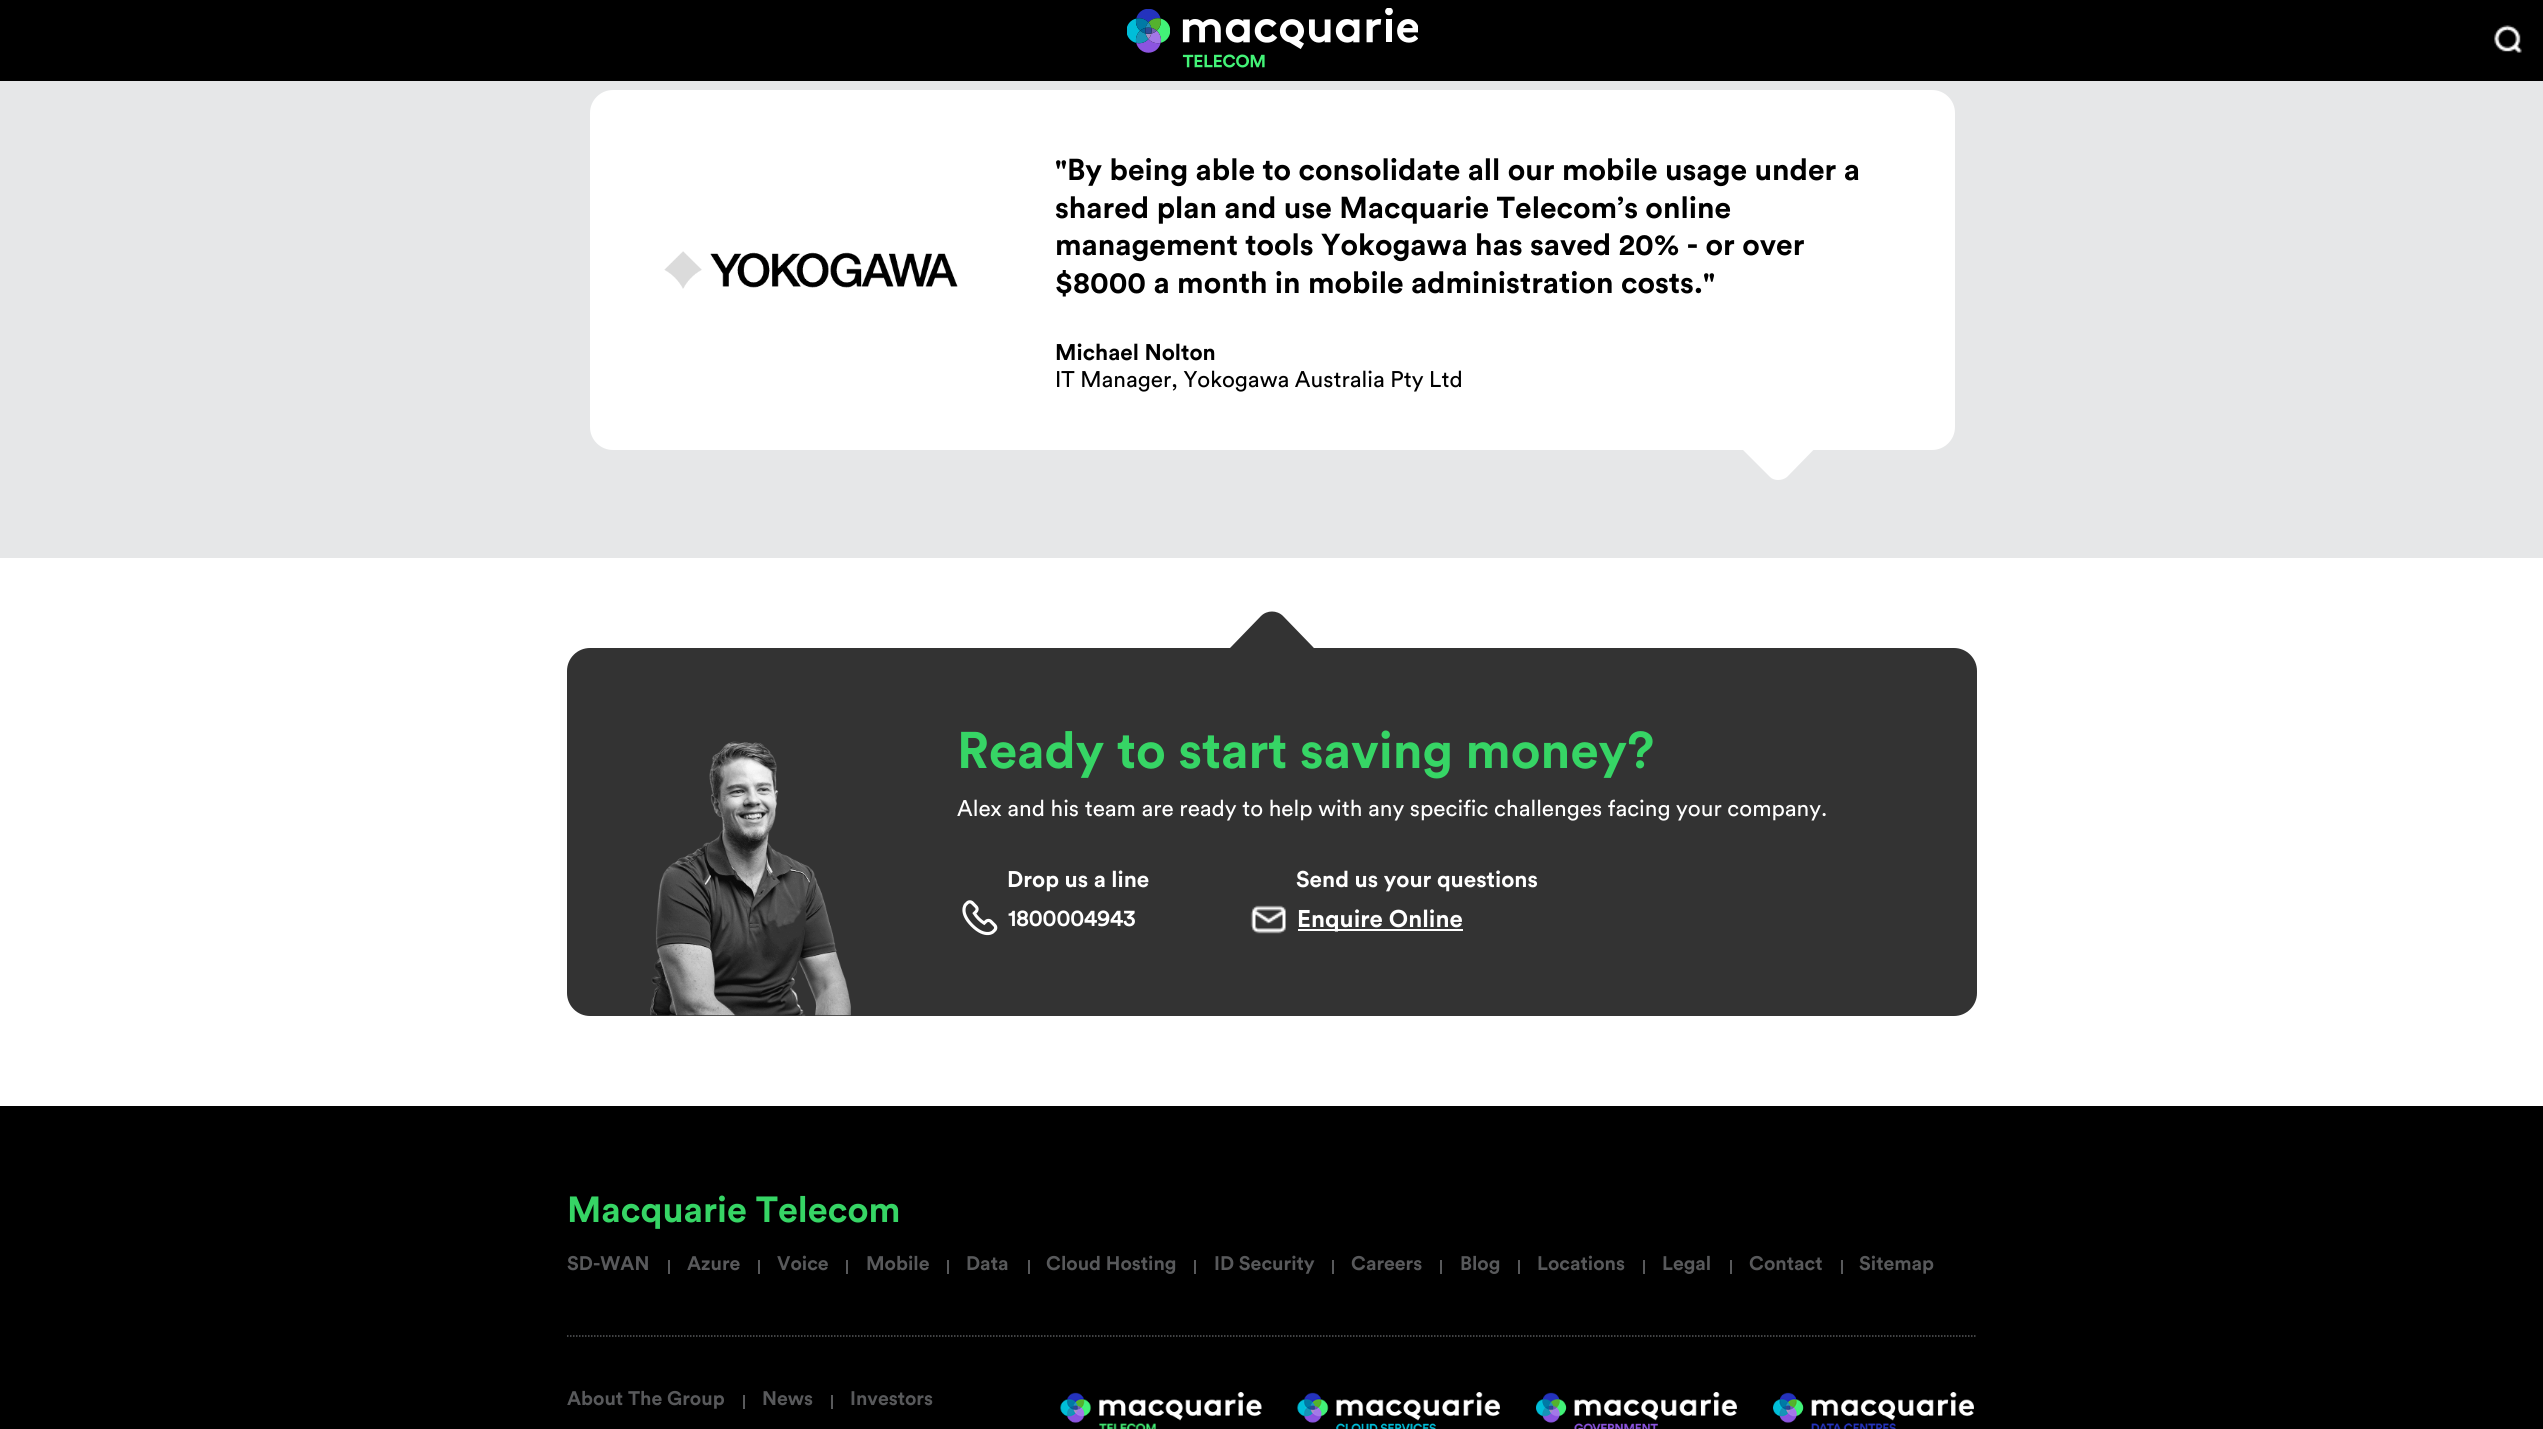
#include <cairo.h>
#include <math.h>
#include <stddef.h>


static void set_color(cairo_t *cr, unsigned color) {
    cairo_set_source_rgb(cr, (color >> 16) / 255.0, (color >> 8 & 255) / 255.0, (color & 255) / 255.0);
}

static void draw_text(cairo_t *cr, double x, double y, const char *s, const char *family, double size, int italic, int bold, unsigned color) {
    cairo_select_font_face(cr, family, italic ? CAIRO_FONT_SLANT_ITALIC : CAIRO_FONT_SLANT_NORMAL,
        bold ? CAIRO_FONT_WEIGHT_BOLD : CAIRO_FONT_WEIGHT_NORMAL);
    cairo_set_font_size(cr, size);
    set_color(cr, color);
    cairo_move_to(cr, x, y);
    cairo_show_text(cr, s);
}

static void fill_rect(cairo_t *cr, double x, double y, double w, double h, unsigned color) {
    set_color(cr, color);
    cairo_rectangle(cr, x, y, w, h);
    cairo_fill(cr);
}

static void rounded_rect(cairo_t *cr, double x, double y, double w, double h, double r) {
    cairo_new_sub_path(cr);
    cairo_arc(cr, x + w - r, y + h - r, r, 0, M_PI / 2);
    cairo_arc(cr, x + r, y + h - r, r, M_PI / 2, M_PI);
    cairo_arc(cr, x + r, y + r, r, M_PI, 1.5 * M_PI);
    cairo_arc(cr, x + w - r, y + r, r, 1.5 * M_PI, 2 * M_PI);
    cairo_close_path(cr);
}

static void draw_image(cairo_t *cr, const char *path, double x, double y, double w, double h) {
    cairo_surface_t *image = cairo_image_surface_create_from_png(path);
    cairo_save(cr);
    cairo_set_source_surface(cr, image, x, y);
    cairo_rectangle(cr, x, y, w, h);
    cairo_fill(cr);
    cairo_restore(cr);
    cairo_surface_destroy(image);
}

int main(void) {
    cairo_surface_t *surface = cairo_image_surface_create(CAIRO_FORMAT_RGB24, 2543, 1429);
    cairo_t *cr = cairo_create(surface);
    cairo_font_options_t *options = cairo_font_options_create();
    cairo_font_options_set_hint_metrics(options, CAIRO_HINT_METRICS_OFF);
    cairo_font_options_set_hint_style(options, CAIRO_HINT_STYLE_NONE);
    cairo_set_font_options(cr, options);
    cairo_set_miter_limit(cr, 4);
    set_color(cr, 0xFFFFFF);
    cairo_paint(cr);
    fill_rect(cr, 0, 0, 2543, 81, 0x000000);
    draw_image(cr, "assets/img1.png", 1127, 8, 291, 60);
    draw_image(cr, "assets/img2.png", 2494, 25, 28, 28);
    fill_rect(cr, 0, 81, 2543, 477, 0xE6E7E8);
    set_color(cr, 0xFFFFFF);
    rounded_rect(cr, 590, 90, 1365, 360, 23);
    cairo_fill(cr);
    draw_image(cr, "assets/img3.png", 664, 251, 294, 38);
    draw_text(cr, 1055, 180, "\"By being able to consolidate all our mobile usage under a", "Circular", 30, 0, 1, 0x000000);
    draw_text(cr, 1055, 218, "shared plan and use Macquarie Telecom’s online", "Circular", 30, 0, 1, 0x000000);
    draw_text(cr, 1055, 255, "management tools Yokogawa has saved 20% - or over", "Circular", 30, 0, 1, 0x000000);
    draw_text(cr, 1055, 293, "$8000 a month in mobile administration costs.\"", "Circular", 30, 0, 1, 0x000000);
    draw_text(cr, 1055, 360, "Michael Nolton", "Circular", 22.5, 0, 1, 0x000000);
    draw_text(cr, 1055, 387, "IT Manager, Yokogawa Australia Pty Ltd", "Circular", 22.5, 0, 0, 0x000000);
    set_color(cr, 0xFFFFFF);
    cairo_new_path(cr);
    cairo_move_to(cr, 1787, 377);
    cairo_line_to(cr, 1828, 418);
    cairo_curve_to(cr, 1833, 423, 1833, 431, 1828, 435);
    cairo_line_to(cr, 1787, 477);
    cairo_curve_to(cr, 1782, 481, 1774, 481, 1770, 477);
    cairo_line_to(cr, 1728, 435);
    cairo_curve_to(cr, 1724, 431, 1724, 423, 1728, 418);
    cairo_line_to(cr, 1770, 377);
    cairo_curve_to(cr, 1774, 372, 1782, 372, 1787, 377);
    cairo_close_path(cr);
    cairo_fill(cr);
    set_color(cr, 0x333333);
    rounded_rect(cr, 567, 648, 1410, 368, 23);
    cairo_fill(cr);
    cairo_new_path(cr);
    cairo_move_to(cr, 1283, 616);
    cairo_line_to(cr, 1313, 647);
    cairo_curve_to(cr, 1314, 648, 1314, 648, 1313, 649);
    cairo_line_to(cr, 1272, 690);
    cairo_line_to(cr, 1230, 648);
    cairo_line_to(cr, 1261, 616);
    cairo_curve_to(cr, 1267, 610, 1277, 610, 1283, 616);
    cairo_close_path(cr);
    cairo_fill(cr);
    draw_image(cr, "assets/img4.png", 650, 741, 201, 275);
    draw_text(cr, 957, 768, "Ready to start saving money?", "Circular", 51, 0, 1, 0x36D565);
    draw_text(cr, 957, 816, "Alex and his team are ready to help with any specific challenges facing your company.", "Circular", 22.5, 0, 0, 0xFFFFFF);
    draw_text(cr, 1007, 887, "Drop us a line", "Circular", 22.5, 0, 1, 0xFFFFFF);
    draw_image(cr, "assets/img5.png", 962, 900, 36, 36);
    draw_text(cr, 1008, 926, "1800004943", "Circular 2", 22.5, 0, 1, 0xFFFFFF);
    draw_text(cr, 1296, 887, "Send us your questions", "Circular", 22.5, 0, 1, 0xFFFFFF);
    draw_image(cr, "assets/img6.png", 1250, 905, 36, 29);
    fill_rect(cr, 1298, 929, 165, 2, 0xFFFFFF);
    draw_text(cr, 1297, 927, "Enquire Online", "Circular", 24, 0, 1, 0xFFFFFF);
    fill_rect(cr, 0, 1106, 2543, 323, 0x000000);
    cairo_new_path(cr);
    cairo_move_to(cr, 567, 1336);
    cairo_line_to(cr, 1977, 1336);
    set_color(cr, 0x58595B);
    cairo_set_line_width(cr, 1.5);
    cairo_set_dash(cr, (double[]){1.5, 1.5}, 2, 0);
    cairo_stroke(cr);
    draw_text(cr, 567, 1222, "Macquarie Telecom", "Circular", 36, 0, 1, 0x36D565);
    fill_rect(cr, 668, 1260, 2, 14, 0x58595B);
    draw_text(cr, 567, 1270, "SD-WAN", "Circular", 19.5, 0, 1, 0x58595B);
    fill_rect(cr, 758, 1260, 2, 14, 0x58595B);
    draw_text(cr, 687, 1270, "Azure", "Circular", 19.5, 0, 1, 0x58595B);
    fill_rect(cr, 846, 1260, 2, 14, 0x58595B);
    draw_text(cr, 777, 1270, "Voice", "Circular", 19.5, 0, 1, 0x58595B);
    fill_rect(cr, 947, 1260, 2, 14, 0x58595B);
    draw_text(cr, 866, 1270, "Mobile", "Circular", 19.5, 0, 1, 0x58595B);
    fill_rect(cr, 1028, 1260, 2, 14, 0x58595B);
    draw_text(cr, 966, 1270, "Data", "Circular", 19.5, 0, 1, 0x58595B);
    fill_rect(cr, 1194, 1260, 2, 14, 0x58595B);
    draw_text(cr, 1046, 1270, "Cloud Hosting", "Circular", 19.5, 0, 1, 0x58595B);
    fill_rect(cr, 1332, 1260, 2, 14, 0x58595B);
    draw_text(cr, 1214, 1270, "ID Security", "Circular", 19.5, 0, 1, 0x58595B);
    fill_rect(cr, 1440, 1260, 2, 14, 0x58595B);
    draw_text(cr, 1351, 1270, "Careers", "Circular", 19.5, 0, 1, 0x58595B);
    fill_rect(cr, 1518, 1260, 2, 14, 0x58595B);
    draw_text(cr, 1460, 1270, "Blog", "Circular", 19.5, 0, 1, 0x58595B);
    fill_rect(cr, 1643, 1260, 2, 14, 0x58595B);
    draw_text(cr, 1537, 1270, "Locations", "Circular", 19.5, 0, 1, 0x58595B);
    fill_rect(cr, 1730, 1260, 2, 14, 0x58595B);
    draw_text(cr, 1662, 1270, "Legal", "Circular", 19.5, 0, 1, 0x58595B);
    fill_rect(cr, 1841, 1260, 2, 14, 0x58595B);
    draw_text(cr, 1749, 1270, "Contact", "Circular", 19.5, 0, 1, 0x58595B);
    draw_text(cr, 1859, 1270, "Sitemap", "Circular", 19.5, 0, 1, 0x58595B);
    fill_rect(cr, 743, 1395, 2, 14, 0x58595B);
    draw_text(cr, 567, 1405, "About The Group", "Circular", 19.5, 0, 1, 0x58595B);
    fill_rect(cr, 831, 1395, 2, 14, 0x58595B);
    draw_text(cr, 762, 1405, "News", "Circular", 19.5, 0, 1, 0x58595B);
    draw_text(cr, 850, 1405, "Investors", "Circular", 19.5, 0, 1, 0x58595B);
    draw_image(cr, "assets/img7.png", 1060, 1392, 202, 37);
    draw_image(cr, "assets/img8.png", 1297, 1392, 203, 37);
    draw_image(cr, "assets/img9.png", 1536, 1392, 201, 37);
    draw_image(cr, "assets/img10.png", 1773, 1392, 201, 37);
    cairo_surface_write_to_png(surface, "output.png");
    cairo_font_options_destroy(options);
    cairo_destroy(cr);
    cairo_surface_destroy(surface);
    return 0;
}
